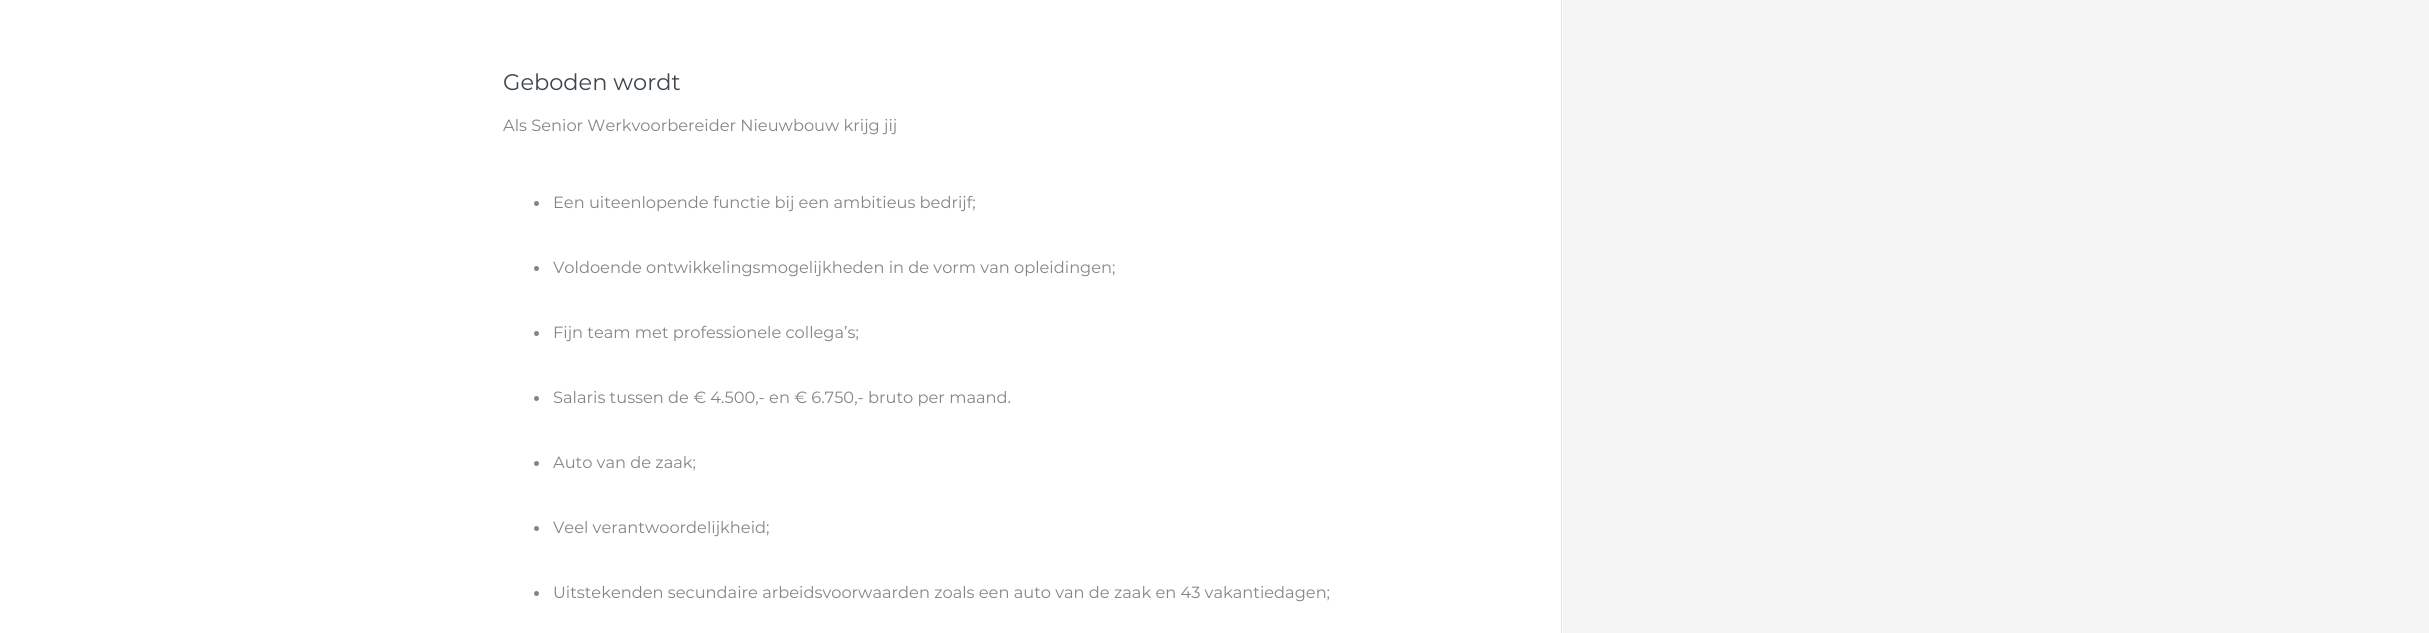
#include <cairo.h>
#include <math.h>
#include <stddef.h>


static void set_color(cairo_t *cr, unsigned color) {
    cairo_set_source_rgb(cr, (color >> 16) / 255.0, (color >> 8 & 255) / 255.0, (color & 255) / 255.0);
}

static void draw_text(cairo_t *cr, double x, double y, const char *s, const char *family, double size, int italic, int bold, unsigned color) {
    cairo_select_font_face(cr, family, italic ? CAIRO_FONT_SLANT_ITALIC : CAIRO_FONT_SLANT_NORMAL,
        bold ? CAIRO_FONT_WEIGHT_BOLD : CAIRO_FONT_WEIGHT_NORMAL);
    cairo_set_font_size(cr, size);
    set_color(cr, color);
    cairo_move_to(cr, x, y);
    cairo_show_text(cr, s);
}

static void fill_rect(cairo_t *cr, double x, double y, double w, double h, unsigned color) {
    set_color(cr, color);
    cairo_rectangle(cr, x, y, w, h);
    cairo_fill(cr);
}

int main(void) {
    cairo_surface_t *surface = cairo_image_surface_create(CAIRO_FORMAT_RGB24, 2429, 633);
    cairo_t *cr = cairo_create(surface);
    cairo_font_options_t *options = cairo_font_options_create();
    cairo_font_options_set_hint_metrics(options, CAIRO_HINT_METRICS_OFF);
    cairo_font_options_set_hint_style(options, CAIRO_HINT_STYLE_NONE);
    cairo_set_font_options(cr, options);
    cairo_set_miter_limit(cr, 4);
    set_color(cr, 0xF5F5F5);
    cairo_paint(cr);
    fill_rect(cr, 503, 0, 1060, 633, 0xFFFFFF);
    fill_rect(cr, 1561, 0, 1, 633, 0xE1E1E1);
    draw_text(cr, 503, 131, "Als Senior Werkvoorbereider Nieuwbouw krijg jij", "Montserrat", 16.25, 0, 0, 0x868585);
    fill_rect(cr, 0, 0, 503, 633, 0xFFFFFF);
    draw_text(cr, 503, 90, "Geboden wordt", "Montserrat", 22.5, 0, 0, 0x3D454C);
    set_color(cr, 0x868585);
    cairo_new_path(cr);
    cairo_arc(cr, 536.5, 203.5, 2.5, 0, 2 * M_PI);
    cairo_fill(cr);
    draw_text(cr, 553, 208, "Een uiteenlopende functie bij een ambitieus bedrijf;", "Montserrat", 16.25, 0, 0, 0x868585);
    cairo_new_path(cr);
    cairo_arc(cr, 536.5, 268.5, 2.5, 0, 2 * M_PI);
    cairo_fill(cr);
    draw_text(cr, 553, 273, "Voldoende ontwikkelingsmogelijkheden in de vorm van opleidingen;", "Montserrat", 16.25, 0, 0, 0x868585);
    cairo_new_path(cr);
    cairo_arc(cr, 536.5, 333.5, 2.5, 0, 2 * M_PI);
    cairo_fill(cr);
    draw_text(cr, 553, 338, "Fijn team met professionele collega’s;", "Montserrat", 16.25, 0, 0, 0x868585);
    cairo_new_path(cr);
    cairo_arc(cr, 536.5, 398.5, 2.5, 0, 2 * M_PI);
    cairo_fill(cr);
    draw_text(cr, 553, 403, "Salaris tussen de € 4.500,- en € 6.750,- bruto per maand.", "Montserrat", 16.25, 0, 0, 0x868585);
    cairo_new_path(cr);
    cairo_arc(cr, 536.5, 463.5, 2.5, 0, 2 * M_PI);
    cairo_fill(cr);
    draw_text(cr, 553, 468, "Auto van de zaak;", "Montserrat", 16.25, 0, 0, 0x868585);
    cairo_new_path(cr);
    cairo_arc(cr, 536.5, 528.5, 2.5, 0, 2 * M_PI);
    cairo_fill(cr);
    draw_text(cr, 553, 533, "Veel verantwoordelijkheid;", "Montserrat", 16.25, 0, 0, 0x868585);
    cairo_new_path(cr);
    cairo_arc(cr, 536.5, 593.5, 2.5, 0, 2 * M_PI);
    cairo_fill(cr);
    draw_text(cr, 553, 598, "Uitstekenden secundaire arbeidsvoorwaarden zoals een auto van de zaak en 43 vakantiedagen;", "Montserrat", 16.25, 0, 0, 0x868585);
    cairo_surface_write_to_png(surface, "output.png");
    cairo_font_options_destroy(options);
    cairo_destroy(cr);
    cairo_surface_destroy(surface);
    return 0;
}
